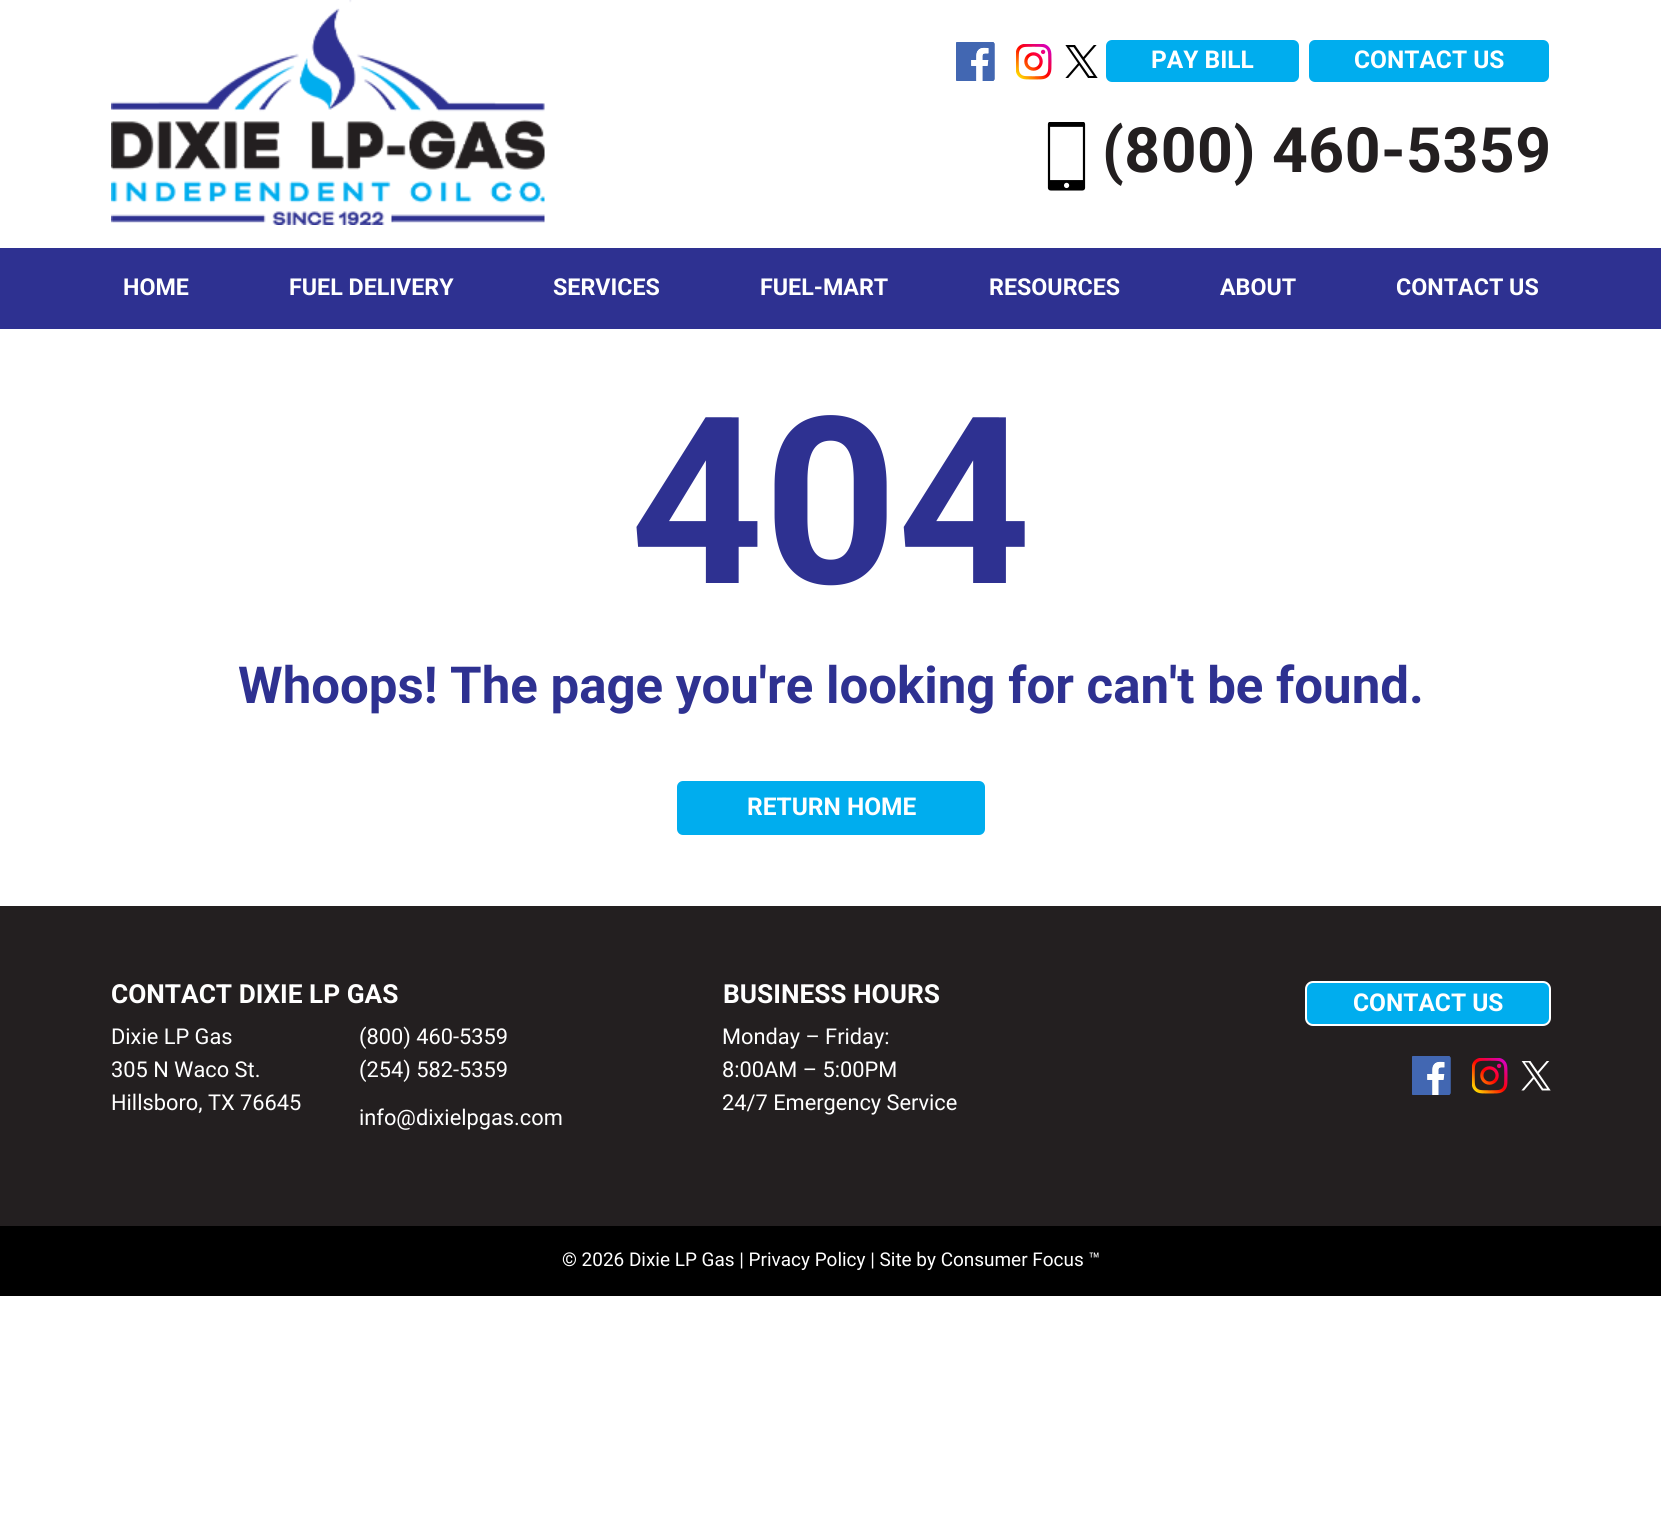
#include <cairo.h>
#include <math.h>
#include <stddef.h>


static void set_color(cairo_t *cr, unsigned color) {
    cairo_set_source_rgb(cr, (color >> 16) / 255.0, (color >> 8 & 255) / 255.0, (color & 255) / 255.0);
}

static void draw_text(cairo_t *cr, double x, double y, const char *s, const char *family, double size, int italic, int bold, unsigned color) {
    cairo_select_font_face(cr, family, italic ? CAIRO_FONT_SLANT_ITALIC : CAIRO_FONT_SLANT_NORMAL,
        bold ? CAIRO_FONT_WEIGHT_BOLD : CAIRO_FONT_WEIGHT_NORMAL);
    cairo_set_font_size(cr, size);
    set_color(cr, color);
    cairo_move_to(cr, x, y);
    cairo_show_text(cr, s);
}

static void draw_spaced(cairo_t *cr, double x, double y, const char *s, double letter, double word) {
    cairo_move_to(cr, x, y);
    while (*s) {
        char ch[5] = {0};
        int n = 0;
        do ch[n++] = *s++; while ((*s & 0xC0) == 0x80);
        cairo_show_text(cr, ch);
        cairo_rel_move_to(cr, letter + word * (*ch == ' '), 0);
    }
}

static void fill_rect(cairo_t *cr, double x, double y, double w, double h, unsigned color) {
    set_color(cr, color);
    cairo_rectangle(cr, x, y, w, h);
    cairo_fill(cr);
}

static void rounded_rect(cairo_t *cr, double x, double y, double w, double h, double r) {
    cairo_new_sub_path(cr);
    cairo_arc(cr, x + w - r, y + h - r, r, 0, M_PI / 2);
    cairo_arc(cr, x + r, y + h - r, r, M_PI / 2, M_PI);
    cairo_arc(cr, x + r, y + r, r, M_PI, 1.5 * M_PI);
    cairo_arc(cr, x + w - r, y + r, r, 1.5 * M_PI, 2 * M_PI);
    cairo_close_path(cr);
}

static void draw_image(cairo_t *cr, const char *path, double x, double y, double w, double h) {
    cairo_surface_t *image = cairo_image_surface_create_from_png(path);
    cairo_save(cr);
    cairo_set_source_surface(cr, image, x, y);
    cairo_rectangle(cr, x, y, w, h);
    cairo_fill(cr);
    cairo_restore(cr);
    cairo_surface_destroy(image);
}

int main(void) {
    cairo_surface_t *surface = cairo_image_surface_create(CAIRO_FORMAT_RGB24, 1661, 1538);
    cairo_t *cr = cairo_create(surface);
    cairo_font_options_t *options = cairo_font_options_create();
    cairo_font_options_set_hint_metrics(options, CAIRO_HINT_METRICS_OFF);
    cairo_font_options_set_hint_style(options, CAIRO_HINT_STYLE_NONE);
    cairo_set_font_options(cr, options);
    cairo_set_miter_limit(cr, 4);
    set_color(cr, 0xFFFFFF);
    cairo_paint(cr);
    draw_image(cr, "assets/img1.png", 111, 0, 434, 225);
    draw_image(cr, "assets/img2.png", 956, 42, 39, 39);
    draw_image(cr, "assets/img3.png", 1016, 44, 36, 36);
    draw_image(cr, "assets/img4.png", 1065, 45, 33, 33);
    set_color(cr, 0x00ADEE);
    rounded_rect(cr, 1105, 39, 195, 44, 7);
    cairo_fill_preserve(cr);
    set_color(cr, 0xFFFFFF);
    cairo_stroke(cr);
    draw_text(cr, 1151, 68, "PAY BILL", "Roboto", 24.5, 0, 1, 0xFFFFFF);
    set_color(cr, 0x00ADEE);
    rounded_rect(cr, 1308, 39, 242, 44, 7);
    cairo_fill_preserve(cr);
    set_color(cr, 0xFFFFFF);
    cairo_stroke(cr);
    draw_text(cr, 1354, 68, "CONTACT US", "Roboto", 24.5, 0, 1, 0xFFFFFF);
    draw_image(cr, "assets/img5.png", 1047, 122, 39, 69);
    cairo_set_font_size(cr, 62.5);
    set_color(cr, 0x231F20);
    draw_spaced(cr, 1102, 172, "(800) 460-5359", 0.5, 0);
    fill_rect(cr, 0, 248, 1661, 81, 0x2E3191);
    draw_text(cr, 123, 295, "HOME", "Roboto", 23.25, 0, 1, 0xFFFFFF);
    draw_text(cr, 289, 295, "FUEL DELIVERY", "Roboto", 23.25, 0, 1, 0xFFFFFF);
    draw_text(cr, 553, 295, "SERVICES", "Roboto", 23.25, 0, 1, 0xFFFFFF);
    draw_text(cr, 760, 295, "FUEL-MART", "Roboto", 23.25, 0, 1, 0xFFFFFF);
    draw_text(cr, 989, 295, "RESOURCES", "Roboto", 23.25, 0, 1, 0xFFFFFF);
    draw_text(cr, 1220, 295, "ABOUT", "Roboto", 23.25, 0, 1, 0xFFFFFF);
    draw_text(cr, 1396, 295, "CONTACT US", "Roboto", 23.25, 0, 1, 0xFFFFFF);
    draw_text(cr, 630, 583, "404", "Roboto", 233, 0, 1, 0x2E3191);
    draw_text(cr, 238, 703, "Whoops! The page you're looking for can't be found.", "Roboto", 51, 0, 1, 0x2E3191);
    set_color(cr, 0x00ADEE);
    rounded_rect(cr, 676, 780, 310, 56, 7);
    cairo_fill_preserve(cr);
    set_color(cr, 0xFFFFFF);
    cairo_stroke(cr);
    draw_text(cr, 747, 815, "RETURN HOME", "Roboto", 24.5, 0, 1, 0xFFFFFF);
    fill_rect(cr, 0, 906, 1661, 320, 0x231F20);
    draw_text(cr, 111, 1003, "CONTACT DIXIE LP GAS", "Roboto", 26.25, 0, 1, 0xFFFFFF);
    draw_text(cr, 111, 1044, "Dixie LP Gas", "Roboto", 21.8, 0, 0, 0xFFFFFF);
    draw_text(cr, 111, 1077, "305 N Waco St.", "Roboto", 21.8, 0, 0, 0xFFFFFF);
    draw_text(cr, 111, 1110, "Hillsboro, TX 76645", "Roboto", 21.8, 0, 0, 0xFFFFFF);
    draw_text(cr, 359, 1044, "(800) 460-5359", "Roboto", 21.8, 0, 0, 0xFFFFFF);
    draw_text(cr, 359, 1077, "(254) 582-5359", "Roboto", 21.8, 0, 0, 0xFFFFFF);
    draw_text(cr, 359, 1125, "info@dixielpgas.com", "Roboto", 21.8, 0, 0, 0xFFFFFF);
    draw_text(cr, 723, 1003, "BUSINESS HOURS", "Roboto", 26.25, 0, 1, 0xFFFFFF);
    draw_text(cr, 722, 1044, "Monday – Friday:", "Roboto", 21.8, 0, 0, 0xFFFFFF);
    draw_text(cr, 722, 1077, "8:00AM – 5:00PM", "Roboto", 21.8, 0, 0, 0xFFFFFF);
    draw_text(cr, 722, 1110, "24/7 Emergency Service", "Roboto", 21.8, 0, 0, 0xFFFFFF);
    set_color(cr, 0x00ADEE);
    rounded_rect(cr, 1306, 982, 244, 43, 7);
    cairo_fill_preserve(cr);
    set_color(cr, 0xFFFFFF);
    cairo_stroke(cr);
    draw_text(cr, 1353, 1011, "CONTACT US", "Roboto", 24.5, 0, 1, 0xFFFFFF);
    draw_image(cr, "assets/img6.png", 1412, 1056, 39, 39);
    draw_image(cr, "assets/img7.png", 1472, 1058, 36, 36);
    draw_image(cr, "assets/img8.png", 1521, 1061, 30, 30);
    fill_rect(cr, 0, 1226, 1661, 70, 0x000000);
    draw_text(cr, 562, 1266, "© 2026 Dixie LP Gas | Privacy Policy | Site by Consumer Focus ™", "Roboto", 18.95, 0, 0, 0xFFFFFF);
    cairo_surface_write_to_png(surface, "output.png");
    cairo_font_options_destroy(options);
    cairo_destroy(cr);
    cairo_surface_destroy(surface);
    return 0;
}
